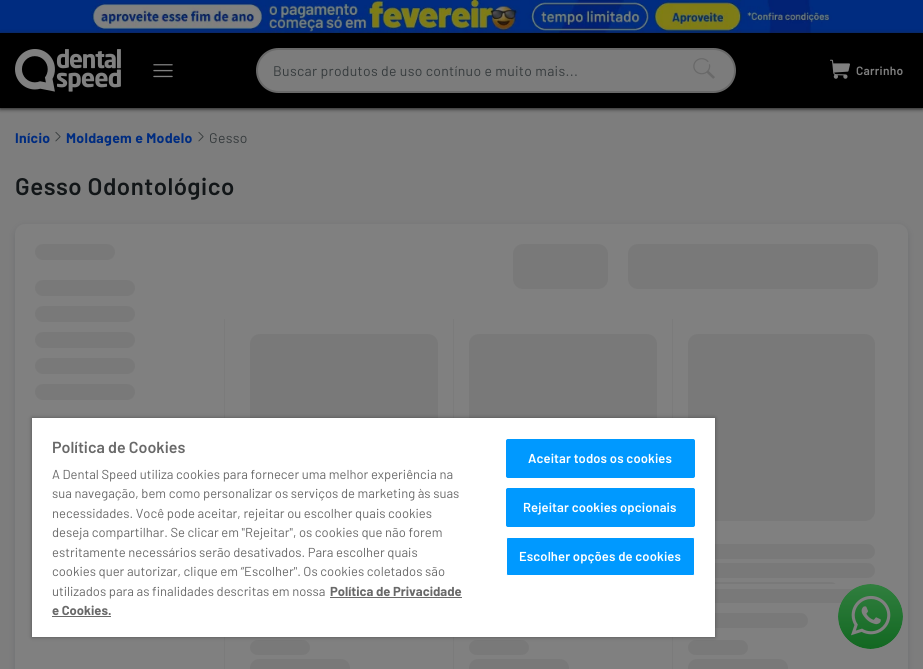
#include <cairo.h>
#include <math.h>
#include <stddef.h>


static void set_color(cairo_t *cr, unsigned color) {
    cairo_set_source_rgb(cr, (color >> 16) / 255.0, (color >> 8 & 255) / 255.0, (color & 255) / 255.0);
}

static void draw_text(cairo_t *cr, double x, double y, const char *s, const char *family, double size, int italic, int bold, unsigned color) {
    cairo_select_font_face(cr, family, italic ? CAIRO_FONT_SLANT_ITALIC : CAIRO_FONT_SLANT_NORMAL,
        bold ? CAIRO_FONT_WEIGHT_BOLD : CAIRO_FONT_WEIGHT_NORMAL);
    cairo_set_font_size(cr, size);
    set_color(cr, color);
    cairo_move_to(cr, x, y);
    cairo_show_text(cr, s);
}

static void draw_spaced(cairo_t *cr, double x, double y, const char *s, double letter, double word) {
    cairo_move_to(cr, x, y);
    while (*s) {
        char ch[5] = {0};
        int n = 0;
        do ch[n++] = *s++; while ((*s & 0xC0) == 0x80);
        cairo_show_text(cr, ch);
        cairo_rel_move_to(cr, letter + word * (*ch == ' '), 0);
    }
}

static void fill_rect(cairo_t *cr, double x, double y, double w, double h, unsigned color) {
    set_color(cr, color);
    cairo_rectangle(cr, x, y, w, h);
    cairo_fill(cr);
}

static void rounded_rect(cairo_t *cr, double x, double y, double w, double h, double r) {
    cairo_new_sub_path(cr);
    cairo_arc(cr, x + w - r, y + h - r, r, 0, M_PI / 2);
    cairo_arc(cr, x + r, y + h - r, r, M_PI / 2, M_PI);
    cairo_arc(cr, x + r, y + r, r, M_PI, 1.5 * M_PI);
    cairo_arc(cr, x + w - r, y + r, r, 1.5 * M_PI, 2 * M_PI);
    cairo_close_path(cr);
}

static void draw_shadow(cairo_t *cr, double x, double y, double w, double h, double r, double blur, double alpha) {
    cairo_push_group_with_content(cr, CAIRO_CONTENT_ALPHA);
    cairo_set_operator(cr, CAIRO_OPERATOR_SOURCE);
    for (int i = 15; i >= -15 && fmin(w, h) + blur * i / 3 > 0; i -= 2) {
        double e = blur * i / 6;
        cairo_set_source_rgba(cr, 0, 0, 0, alpha * erfc((i - 1) / 8.5) / 2);
        rounded_rect(cr, x - e, y - e, w + 2 * e, h + 2 * e, fmax(0, fmin(r + e + blur * .6, fmin(w, h) / 2 + e)));
        cairo_fill(cr);
    }
    cairo_pattern_t *soft = cairo_pop_group(cr);
    cairo_mask(cr, soft);
    cairo_pattern_destroy(soft);
}

static void draw_image(cairo_t *cr, const char *path, double x, double y, double w, double h) {
    cairo_surface_t *image = cairo_image_surface_create_from_png(path);
    cairo_save(cr);
    cairo_set_source_surface(cr, image, x, y);
    cairo_rectangle(cr, x, y, w, h);
    cairo_fill(cr);
    cairo_restore(cr);
    cairo_surface_destroy(image);
}

int main(void) {
    cairo_surface_t *surface = cairo_image_surface_create(CAIRO_FORMAT_RGB24, 923, 669);
    cairo_t *cr = cairo_create(surface);
    cairo_font_options_t *options = cairo_font_options_create();
    cairo_font_options_set_hint_metrics(options, CAIRO_HINT_METRICS_OFF);
    cairo_font_options_set_hint_style(options, CAIRO_HINT_STYLE_NONE);
    cairo_set_font_options(cr, options);
    cairo_set_miter_limit(cr, 4);
    set_color(cr, 0x7D7D7D);
    cairo_paint(cr);
    fill_rect(cr, 0, 0, 923, 33, 0x002C80);
    draw_image(cr, "assets/img1.png", 91, 0, 741, 33);
    set_color(cr, 0x222222);
    draw_shadow(cr, 0, 34, 923, 75, 0, 2, 1);
    fill_rect(cr, 0, 33, 923, 75, 0x000000);
    draw_image(cr, "assets/img2.png", 15, 49, 106, 43);
    draw_image(cr, "assets/img3.png", 153, 64, 20, 14);
    set_color(cr, 0x7C7C7C);
    rounded_rect(cr, 257, 49, 478, 43, 21.5);
    cairo_fill_preserve(cr);
    set_color(cr, 0x696969);
    cairo_stroke(cr);
    cairo_select_font_face(cr, "Barlow", CAIRO_FONT_SLANT_NORMAL, CAIRO_FONT_WEIGHT_NORMAL);
    cairo_set_font_size(cr, 14);
    set_color(cr, 0x363B3D);
    draw_spaced(cr, 273, 76, "Buscar produtos de uso contínuo e muito mais...", 0.3, 0);
    draw_image(cr, "assets/img4.png", 693, 58, 22, 21);
    draw_image(cr, "assets/img5.png", 830, 59, 20, 20);
    cairo_select_font_face(cr, "Barlow SemiBold", CAIRO_FONT_SLANT_NORMAL, CAIRO_FONT_WEIGHT_NORMAL);
    cairo_set_font_size(cr, 12);
    set_color(cr, 0x808080);
    draw_spaced(cr, 856, 75, "Carrinho", 0.25, 0);
    cairo_select_font_face(cr, "Barlow", CAIRO_FONT_SLANT_NORMAL, CAIRO_FONT_WEIGHT_BOLD);
    cairo_set_font_size(cr, 14);
    set_color(cr, 0x002C80);
    draw_spaced(cr, 15, 143, "Início", 0.3, 0);
    draw_image(cr, "assets/img6.png", 55, 131, 6, 11);
    draw_spaced(cr, 66, 143, "Moldagem e Modelo", 0.3, 0);
    draw_image(cr, "assets/img6.png", 198, 131, 6, 11);
    cairo_select_font_face(cr, "Barlow", CAIRO_FONT_SLANT_NORMAL, CAIRO_FONT_WEIGHT_NORMAL);
    set_color(cr, 0x363B3D);
    draw_spaced(cr, 209, 143, "Gesso", 0.3, 0);
    cairo_select_font_face(cr, "Barlow SemiBold", CAIRO_FONT_SLANT_NORMAL, CAIRO_FONT_WEIGHT_NORMAL);
    cairo_set_font_size(cr, 24);
    set_color(cr, 0x121618);
    draw_spaced(cr, 15, 195, "Gesso Odontológico", 0.5, 0);
    set_color(cr, 0x1C2A33);
    draw_shadow(cr, 15, 226, 893, 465, 10, 4, 0.15);
    set_color(cr, 0x808080);
    rounded_rect(cr, 15, 224, 893, 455, 10);
    cairo_fill(cr);
    set_color(cr, 0x797979);
    rounded_rect(cr, 35, 244, 80, 16, 8);
    cairo_fill(cr);
    rounded_rect(cr, 35, 280, 100, 16, 8);
    cairo_fill(cr);
    rounded_rect(cr, 35, 306, 100, 16, 8);
    cairo_fill(cr);
    rounded_rect(cr, 35, 332, 100, 16, 8);
    cairo_fill(cr);
    rounded_rect(cr, 35, 358, 100, 16, 8);
    cairo_fill(cr);
    rounded_rect(cr, 35, 384, 100, 16, 8);
    cairo_fill(cr);
    rounded_rect(cr, 513, 244, 95, 45, 10);
    cairo_fill(cr);
    rounded_rect(cr, 628, 244, 250, 45, 10);
    cairo_fill(cr);
    fill_rect(cr, 224, 319, 1, 350, 0x7B7B7B);
    fill_rect(cr, 453, 319, 1, 350, 0x7B7B7B);
    set_color(cr, 0x797979);
    rounded_rect(cr, 250, 334, 188, 187, 10);
    cairo_fill(cr);
    rounded_rect(cr, 250, 640, 60, 15, 7.5);
    cairo_fill(cr);
    rounded_rect(cr, 250, 659, 100, 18, 9);
    cairo_fill(cr);
    fill_rect(cr, 672, 319, 1, 350, 0x7B7B7B);
    set_color(cr, 0x797979);
    rounded_rect(cr, 469, 334, 188, 187, 10);
    cairo_fill(cr);
    rounded_rect(cr, 469, 640, 60, 15, 7.5);
    cairo_fill(cr);
    rounded_rect(cr, 469, 659, 100, 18, 9);
    cairo_fill(cr);
    rounded_rect(cr, 688, 334, 187, 187, 10);
    cairo_fill(cr);
    rounded_rect(cr, 688, 544, 187, 15, 7.5);
    cairo_fill(cr);
    rounded_rect(cr, 688, 563, 187, 15, 7.5);
    cairo_fill(cr);
    cairo_save(cr);
    rounded_rect(cr, 688, 582, 150, 15, 7.5);
    cairo_clip(cr);
    fill_rect(cr, 715, 582, 123, 2, 0x797979);
    cairo_restore(cr);
    fill_rect(cr, 715, 589, 139, 14, 0x797979);
    rounded_rect(cr, 688, 613, 120, 15, 7.5);
    cairo_fill(cr);
    rounded_rect(cr, 688, 640, 60, 15, 7.5);
    cairo_fill(cr);
    rounded_rect(cr, 688, 659, 100, 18, 9);
    cairo_fill(cr);
    set_color(cr, 0x000000);
    draw_shadow(cr, 32, 418, 683, 219, 0, 2, 0.35);
    fill_rect(cr, 32, 418, 683, 219, 0xFFFFFF);
    draw_text(cr, 52, 453, "Política de Cookies", "Barlow SemiBold", 16, 0, 0, 0x696969);
    draw_text(cr, 52, 479, "A Dental Speed utiliza cookies para fornecer uma melhor experiência na", "Barlow", 13, 0, 0, 0x696969);
    draw_text(cr, 52, 498, "sua navegação, bem como personalizar os serviços de marketing às suas", "Barlow", 13, 0, 0, 0x696969);
    draw_text(cr, 52, 518, "necessidades. Você pode aceitar, rejeitar ou escolher quais cookies", "Barlow", 13, 0, 0, 0x696969);
    draw_text(cr, 52, 537, "deseja compartilhar. Se clicar em \"Rejeitar\", os cookies que não forem", "Barlow", 13, 0, 0, 0x696969);
    draw_text(cr, 52, 557, "estritamente necessários serão desativados. Para escolher quais", "Barlow", 13, 0, 0, 0x696969);
    draw_text(cr, 52, 576, "cookies quer autorizar, clique em “Escolher\". Os cookies coletados são", "Barlow", 13, 0, 0, 0x696969);
    draw_text(cr, 52, 596, "utilizados para as finalidades descritas em nossa", "Barlow", 13, 0, 0, 0x696969);
    draw_text(cr, 330, 596, "Política de Privacidade", "Barlow", 13, 0, 1, 0x696969);
    fill_rect(cr, 330, 597, 132, 1, 0x696969);
    draw_text(cr, 52, 615, "e Cookies.", "Barlow", 13, 0, 1, 0x696969);
    fill_rect(cr, 52, 616, 59, 1, 0x696969);
    set_color(cr, 0x0099FF);
    rounded_rect(cr, 506.5, 439.5, 188, 38, 1.5);
    cairo_fill_preserve(cr);
    cairo_set_line_width(cr, 1);
    cairo_stroke(cr);
    cairo_select_font_face(cr, "Barlow SemiBold", CAIRO_FONT_SLANT_NORMAL, CAIRO_FONT_WEIGHT_NORMAL);
    set_color(cr, 0xFFFFFF);
    draw_spaced(cr, 528, 463, "Aceitar todos os cookies", 0.1, 0);
    set_color(cr, 0x0099FF);
    rounded_rect(cr, 506.5, 488.5, 188, 38, 1.5);
    cairo_fill_preserve(cr);
    cairo_stroke(cr);
    set_color(cr, 0xFFFFFF);
    draw_spaced(cr, 523, 512, "Rejeitar cookies opcionais", 0.1, 0);
    set_color(cr, 0x0099FF);
    rounded_rect(cr, 506.5, 537.5, 188, 38, 1.5);
    cairo_fill_preserve(cr);
    set_color(cr, 0xFFFFFF);
    cairo_stroke(cr);
    draw_spaced(cr, 519, 561, "Escolher opções de cookies", 0.1, 0);
    draw_image(cr, "assets/img7.png", 838, 584, 65, 65);
    cairo_surface_write_to_png(surface, "output.png");
    cairo_font_options_destroy(options);
    cairo_destroy(cr);
    cairo_surface_destroy(surface);
    return 0;
}
